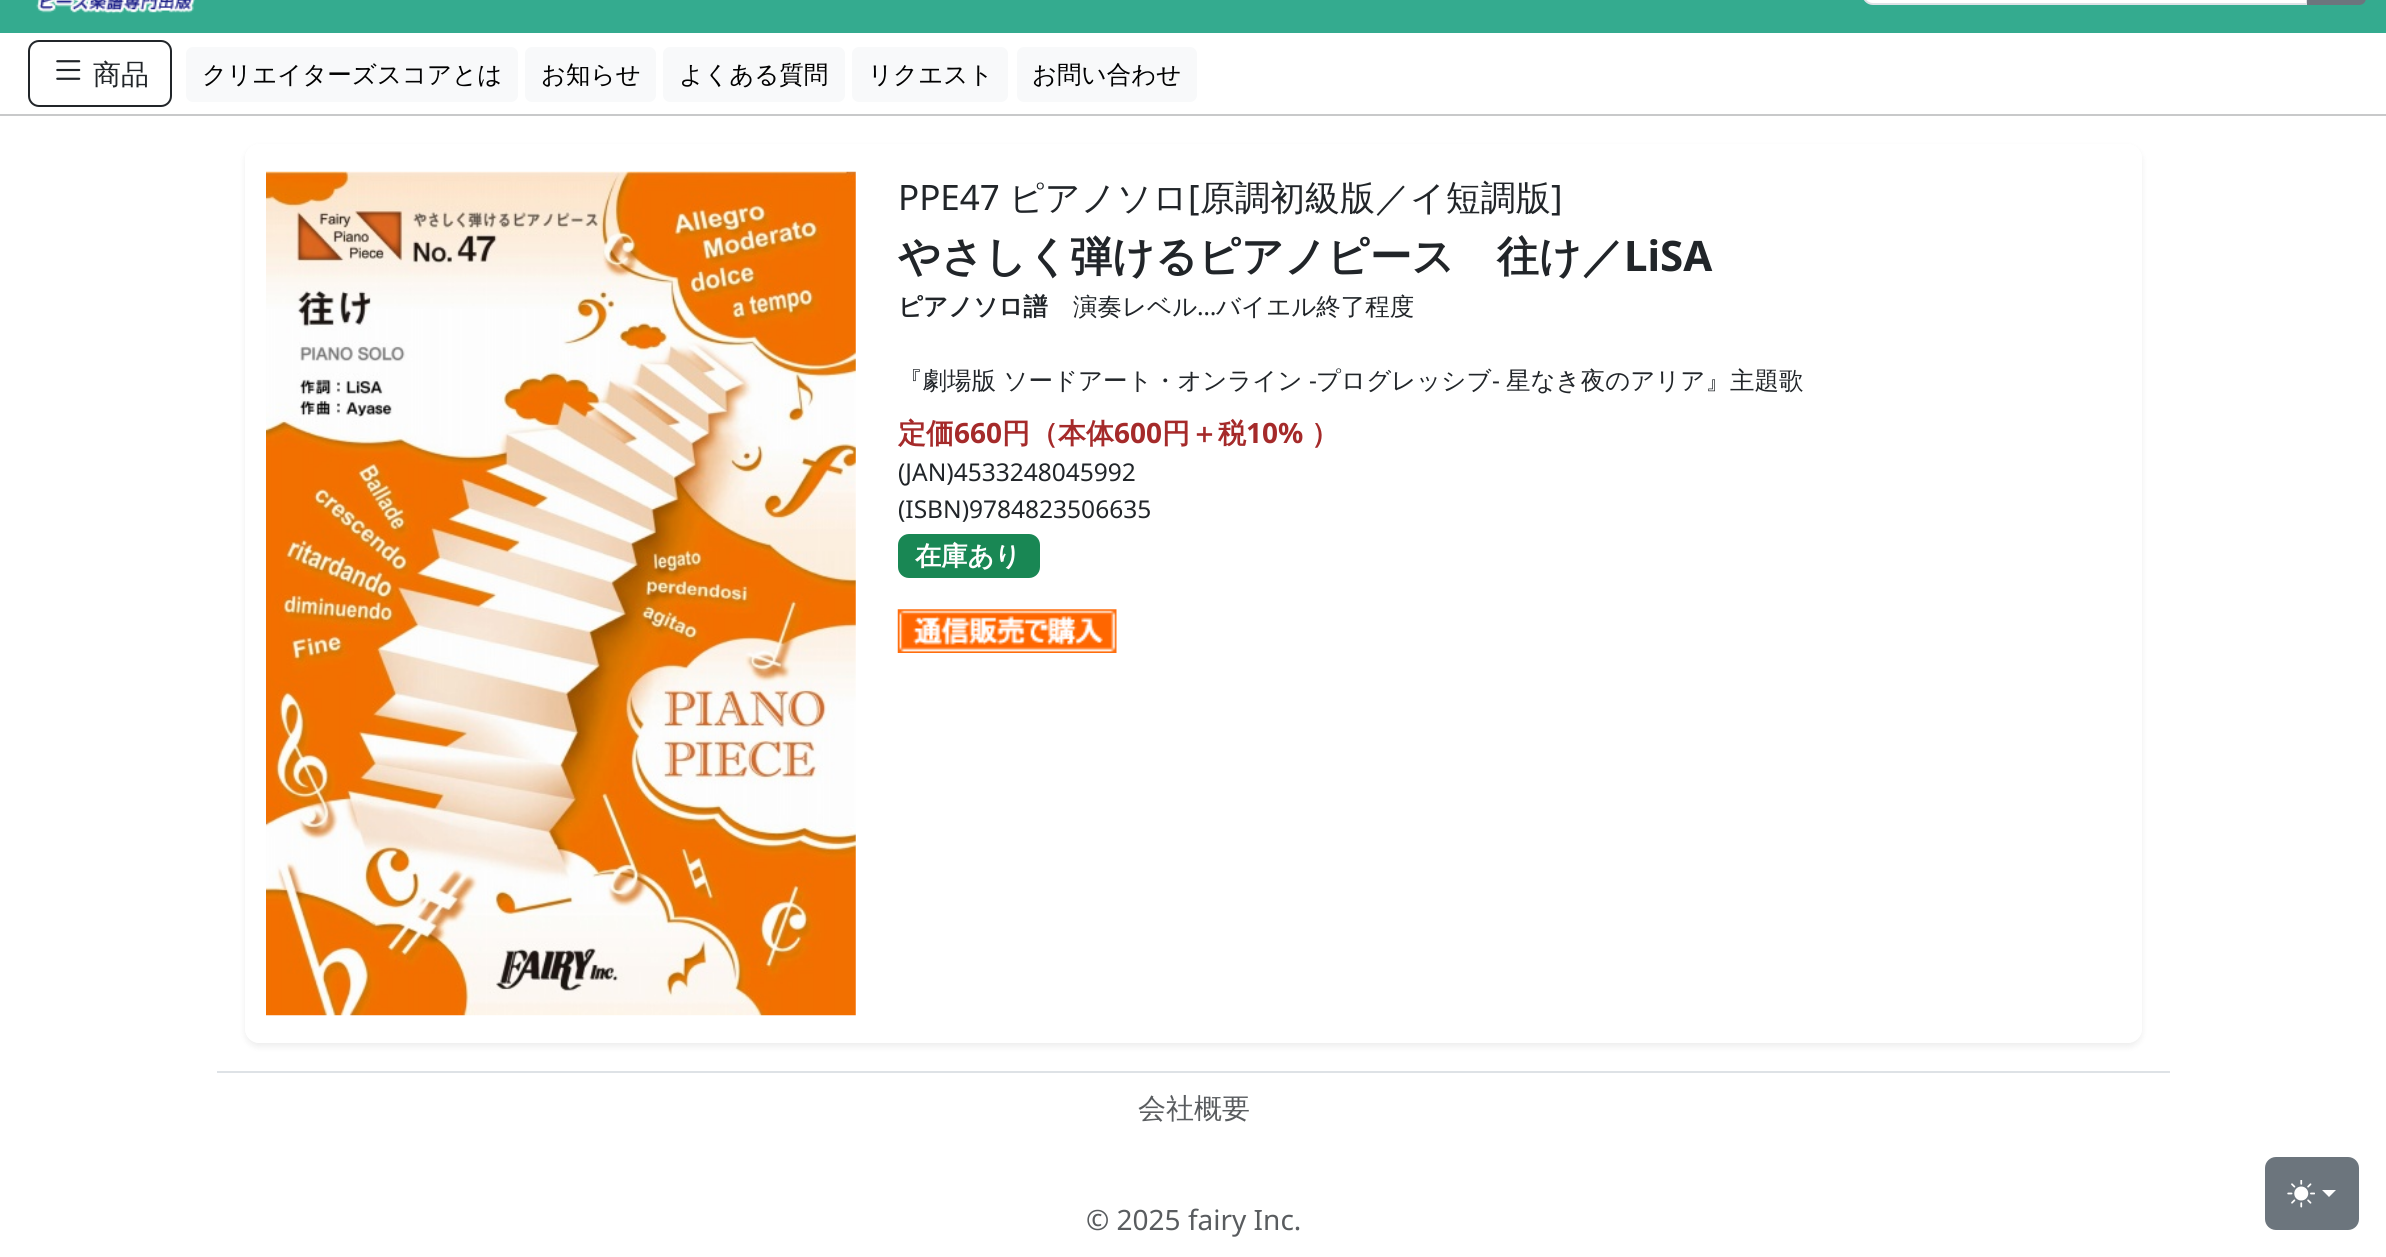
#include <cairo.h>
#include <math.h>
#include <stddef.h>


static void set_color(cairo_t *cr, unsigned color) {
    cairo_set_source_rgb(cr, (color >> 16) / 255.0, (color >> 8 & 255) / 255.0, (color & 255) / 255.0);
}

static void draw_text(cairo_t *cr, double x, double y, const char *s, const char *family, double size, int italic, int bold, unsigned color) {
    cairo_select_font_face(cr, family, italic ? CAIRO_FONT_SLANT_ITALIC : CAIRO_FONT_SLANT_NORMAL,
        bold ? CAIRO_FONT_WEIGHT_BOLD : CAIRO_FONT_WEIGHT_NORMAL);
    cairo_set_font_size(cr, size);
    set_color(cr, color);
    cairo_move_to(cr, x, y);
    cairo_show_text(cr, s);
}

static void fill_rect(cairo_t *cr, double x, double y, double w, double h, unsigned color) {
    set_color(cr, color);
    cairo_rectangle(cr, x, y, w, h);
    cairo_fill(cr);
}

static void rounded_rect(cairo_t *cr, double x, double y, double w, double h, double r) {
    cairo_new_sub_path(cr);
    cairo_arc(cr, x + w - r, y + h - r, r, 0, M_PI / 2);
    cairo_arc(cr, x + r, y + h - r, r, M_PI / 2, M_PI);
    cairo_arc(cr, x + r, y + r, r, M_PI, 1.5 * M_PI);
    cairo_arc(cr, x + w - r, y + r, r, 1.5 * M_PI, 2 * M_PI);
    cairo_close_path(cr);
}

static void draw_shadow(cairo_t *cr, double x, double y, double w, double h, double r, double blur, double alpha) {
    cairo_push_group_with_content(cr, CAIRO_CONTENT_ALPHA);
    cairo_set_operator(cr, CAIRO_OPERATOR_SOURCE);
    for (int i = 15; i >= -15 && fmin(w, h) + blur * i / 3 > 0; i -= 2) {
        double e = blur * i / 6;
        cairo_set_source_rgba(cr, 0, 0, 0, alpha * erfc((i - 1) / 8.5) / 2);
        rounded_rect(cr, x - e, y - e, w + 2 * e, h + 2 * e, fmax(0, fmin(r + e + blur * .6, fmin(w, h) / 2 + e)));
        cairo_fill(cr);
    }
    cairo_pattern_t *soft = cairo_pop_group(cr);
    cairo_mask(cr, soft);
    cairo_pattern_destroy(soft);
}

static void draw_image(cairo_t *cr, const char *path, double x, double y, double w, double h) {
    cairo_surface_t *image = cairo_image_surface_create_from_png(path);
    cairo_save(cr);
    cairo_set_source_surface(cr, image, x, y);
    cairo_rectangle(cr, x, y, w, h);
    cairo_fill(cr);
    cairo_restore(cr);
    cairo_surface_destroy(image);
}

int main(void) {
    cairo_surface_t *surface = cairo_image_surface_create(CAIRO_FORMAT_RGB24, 2386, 1257);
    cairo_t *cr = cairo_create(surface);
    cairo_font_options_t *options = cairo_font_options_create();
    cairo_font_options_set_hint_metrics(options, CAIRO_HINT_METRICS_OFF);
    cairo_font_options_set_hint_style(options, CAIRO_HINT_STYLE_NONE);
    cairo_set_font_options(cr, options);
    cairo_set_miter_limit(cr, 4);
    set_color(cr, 0xFFFFFF);
    cairo_paint(cr);
    fill_rect(cr, 0, 0, 2386, 33, 0x34AB8F);
    set_color(cr, 0xFFFFFF);
    cairo_new_path(cr);
    cairo_move_to(cr, 1873, -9);
    cairo_line_to(cr, 2307, -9);
    cairo_line_to(cr, 2307, 4);
    cairo_line_to(cr, 1873, 4);
    cairo_curve_to(cr, 1868, 4, 1864, 0, 1864, -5);
    cairo_line_to(cr, 1864, 0);
    cairo_curve_to(cr, 1864, -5, 1868, -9, 1873, -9);
    cairo_close_path(cr);
    cairo_fill(cr);
    cairo_new_path(cr);
    cairo_move_to(cr, 1873, -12);
    cairo_line_to(cr, 2307, -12);
    cairo_line_to(cr, 2307, 4);
    cairo_line_to(cr, 1873, 4);
    cairo_curve_to(cr, 1867.5, 4, 1863, -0.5, 1863, -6);
    cairo_line_to(cr, 1863, -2);
    cairo_curve_to(cr, 1863, -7.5, 1867.5, -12, 1873, -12);
    cairo_close_path(cr);
    set_color(cr, 0xDEE2E6);
    cairo_stroke(cr);
    set_color(cr, 0x6C757D);
    cairo_new_path(cr);
    cairo_move_to(cr, 2308, -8);
    cairo_line_to(cr, 2359, -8);
    cairo_curve_to(cr, 2362.5, -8, 2365, -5.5, 2365, -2);
    cairo_curve_to(cr, 2365, 1.5, 2362.5, 4, 2359, 4);
    cairo_line_to(cr, 2308, 4);
    cairo_close_path(cr);
    cairo_fill_preserve(cr);
    cairo_stroke(cr);
    draw_image(cr, "assets/img1.png", 36, 0, 159, 14);
    rounded_rect(cr, 29, 41, 142, 65, 10);
    set_color(cr, 0x212529);
    cairo_stroke(cr);
    draw_image(cr, "assets/img2.png", 56, 60, 25, 20);
    draw_text(cr, 93, 84, "商品", "WenQuanYi Zen Hei Medium", 28, 0, 0, 0x212529);
    set_color(cr, 0xF8F9FA);
    rounded_rect(cr, 186, 47, 332, 55, 7);
    cairo_fill(cr);
    draw_text(cr, 202, 83, "クリエイターズスコアとは", "WenQuanYi Zen Hei Medium", 24.5, 0, 0, 0x000000);
    set_color(cr, 0xF8F9FA);
    rounded_rect(cr, 525, 47, 131, 55, 7);
    cairo_fill(cr);
    draw_text(cr, 541, 83, "お知らせ", "WenQuanYi Zen Hei Medium", 24.5, 0, 0, 0x000000);
    set_color(cr, 0xF8F9FA);
    rounded_rect(cr, 663, 47, 182, 55, 7);
    cairo_fill(cr);
    draw_text(cr, 679, 83, "よくある質問", "WenQuanYi Zen Hei Medium", 24.5, 0, 0, 0x000000);
    set_color(cr, 0xF8F9FA);
    rounded_rect(cr, 852, 47, 156, 55, 7);
    cairo_fill(cr);
    draw_text(cr, 868, 83, "リクエスト", "WenQuanYi Zen Hei Medium", 24.5, 0, 0, 0x000000);
    set_color(cr, 0xF8F9FA);
    rounded_rect(cr, 1017, 47, 180, 55, 7);
    cairo_fill(cr);
    draw_text(cr, 1032, 83, "お問い合わせ", "WenQuanYi Zen Hei Medium", 24.5, 0, 0, 0x000000);
    fill_rect(cr, 0, 114, 2386, 2, 0xC8C9CA);
    cairo_save(cr);
    cairo_set_fill_rule(cr, CAIRO_FILL_RULE_EVEN_ODD);
    cairo_new_path(cr);
    cairo_move_to(cr, 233, 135);
    cairo_line_to(cr, 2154, 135);
    cairo_line_to(cr, 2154, 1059);
    cairo_line_to(cr, 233, 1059);
    cairo_close_path(cr);
    cairo_move_to(cr, 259, 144);
    cairo_line_to(cr, 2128, 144);
    cairo_curve_to(cr, 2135.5, 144, 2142, 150.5, 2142, 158);
    cairo_line_to(cr, 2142, 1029);
    cairo_curve_to(cr, 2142, 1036.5, 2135.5, 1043, 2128, 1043);
    cairo_line_to(cr, 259, 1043);
    cairo_curve_to(cr, 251.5, 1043, 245, 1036.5, 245, 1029);
    cairo_line_to(cr, 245, 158);
    cairo_curve_to(cr, 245, 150.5, 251.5, 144, 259, 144);
    cairo_close_path(cr);
    cairo_clip(cr);
    set_color(cr, 0x000000);
    draw_shadow(cr, 245, 147, 1897, 900, 14, 3.5, 0.07);
    cairo_restore(cr);
    draw_image(cr, "assets/img3.png", 266, 171, 590, 845);
    draw_text(cr, 898, 210, "PPE47", "Noto Sans", 35, 0, 0, 0x212529);
    draw_text(cr, 1009, 210, "ピアノソロ", "WenQuanYi Zen Hei Medium", 35, 0, 0, 0x212529);
    draw_text(cr, 1188, 210, "[", "Noto Sans", 35, 0, 0, 0x212529);
    draw_text(cr, 1200, 210, "原調初級版／イ短調版", "WenQuanYi Zen Hei Medium", 35, 0, 0, 0x212529);
    draw_text(cr, 1551, 210, "]", "Noto Sans", 35, 0, 0, 0x212529);
    draw_text(cr, 898, 271, "やさしく弾けるピアノピース　往け／", "WenQuanYi Zen Hei", 42, 0, 1, 0x212529);
    draw_text(cr, 1624, 271, "LiSA", "Noto Sans", 42, 0, 1, 0x212529);
    draw_text(cr, 898, 315, "ピアノソロ譜", "WenQuanYi Zen Hei", 24.5, 0, 1, 0x212529);
    draw_text(cr, 1073, 315, "演奏レベル", "WenQuanYi Zen Hei Medium", 24.5, 0, 0, 0x212529);
    draw_text(cr, 1197, 315, "…", "Noto Sans", 24.5, 0, 0, 0x212529);
    draw_text(cr, 1216, 315, "バイエル終了程度", "WenQuanYi Zen Hei Medium", 24.5, 0, 0, 0x212529);
    draw_text(cr, 898, 389, "『劇場版 ソードアート・オンライン", "WenQuanYi Zen Hei Medium", 24.5, 0, 0, 0x212529);
    draw_text(cr, 1309, 389, "-", "Noto Sans", 24.5, 0, 0, 0x212529);
    draw_text(cr, 1316, 389, "プログレッシブ", "WenQuanYi Zen Hei Medium", 24.5, 0, 0, 0x212529);
    draw_text(cr, 1492, 389, "-", "Noto Sans", 24.5, 0, 0, 0x212529);
    draw_text(cr, 1506, 389, "星なき夜のアリア』主題歌", "WenQuanYi Zen Hei Medium", 24.5, 0, 0, 0x212529);
    draw_text(cr, 898, 443, "定価", "WenQuanYi Zen Hei", 28, 0, 1, 0xA52A2A);
    draw_text(cr, 954, 443, "660", "Noto Sans", 28, 0, 1, 0xA52A2A);
    draw_text(cr, 1002, 443, "円（本体", "WenQuanYi Zen Hei", 28, 0, 1, 0xA52A2A);
    draw_text(cr, 1114, 443, "600", "Noto Sans", 28, 0, 1, 0xA52A2A);
    draw_text(cr, 1162, 443, "円＋税", "WenQuanYi Zen Hei", 28, 0, 1, 0xA52A2A);
    draw_text(cr, 1246, 443, "10%", "Noto Sans", 28, 0, 1, 0xA52A2A);
    draw_text(cr, 1311, 443, "）", "WenQuanYi Zen Hei", 28, 0, 1, 0xA52A2A);
    draw_text(cr, 898, 481, "(JAN)4533248045992", "Noto Sans", 24.5, 0, 0, 0x212529);
    draw_text(cr, 898, 518, "(ISBN)9784823506635", "Noto Sans", 24.5, 0, 0, 0x212529);
    set_color(cr, 0x198754);
    rounded_rect(cr, 898, 534, 142, 44, 11);
    cairo_fill(cr);
    draw_text(cr, 915, 565, "在庫あり", "WenQuanYi Zen Hei", 26.25, 0, 1, 0xFFFFFF);
    draw_image(cr, "assets/img4.png", 897, 609, 220, 44);
    fill_rect(cr, 217, 1071, 1953, 2, 0xDEE2E6);
    draw_text(cr, 1138, 1118, "会社概要", "WenQuanYi Zen Hei Medium", 28, 0, 0, 0x595C5F);
    draw_text(cr, 1086, 1230, "© 2025 fairy Inc.", "Noto Sans", 28, 0, 0, 0x595C5F);
    set_color(cr, 0x6C757D);
    rounded_rect(cr, 2266, 1158, 92, 71, 10);
    cairo_fill_preserve(cr);
    cairo_stroke(cr);
    draw_image(cr, "assets/img5.png", 2287, 1180, 28, 28);
    set_color(cr, 0xFFFFFF);
    cairo_new_path(cr);
    cairo_move_to(cr, 2322, 1190);
    cairo_line_to(cr, 2336, 1190);
    cairo_line_to(cr, 2329, 1197);
    cairo_close_path(cr);
    cairo_fill(cr);
    cairo_surface_write_to_png(surface, "output.png");
    cairo_font_options_destroy(options);
    cairo_destroy(cr);
    cairo_surface_destroy(surface);
    return 0;
}
